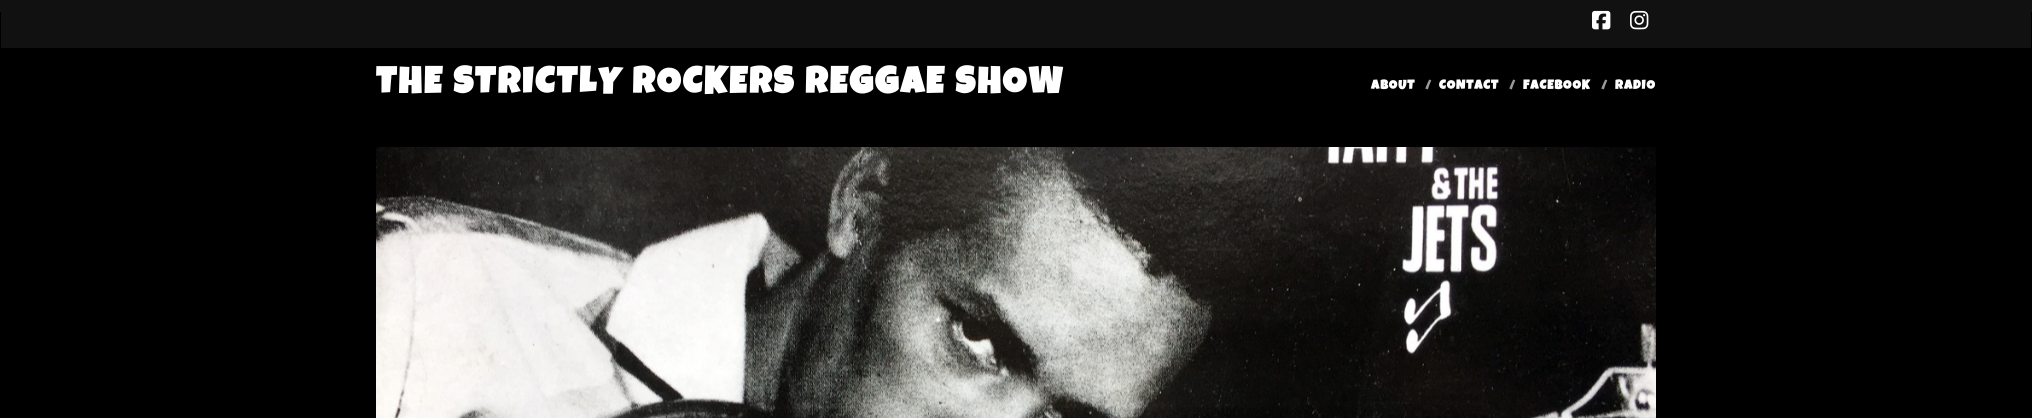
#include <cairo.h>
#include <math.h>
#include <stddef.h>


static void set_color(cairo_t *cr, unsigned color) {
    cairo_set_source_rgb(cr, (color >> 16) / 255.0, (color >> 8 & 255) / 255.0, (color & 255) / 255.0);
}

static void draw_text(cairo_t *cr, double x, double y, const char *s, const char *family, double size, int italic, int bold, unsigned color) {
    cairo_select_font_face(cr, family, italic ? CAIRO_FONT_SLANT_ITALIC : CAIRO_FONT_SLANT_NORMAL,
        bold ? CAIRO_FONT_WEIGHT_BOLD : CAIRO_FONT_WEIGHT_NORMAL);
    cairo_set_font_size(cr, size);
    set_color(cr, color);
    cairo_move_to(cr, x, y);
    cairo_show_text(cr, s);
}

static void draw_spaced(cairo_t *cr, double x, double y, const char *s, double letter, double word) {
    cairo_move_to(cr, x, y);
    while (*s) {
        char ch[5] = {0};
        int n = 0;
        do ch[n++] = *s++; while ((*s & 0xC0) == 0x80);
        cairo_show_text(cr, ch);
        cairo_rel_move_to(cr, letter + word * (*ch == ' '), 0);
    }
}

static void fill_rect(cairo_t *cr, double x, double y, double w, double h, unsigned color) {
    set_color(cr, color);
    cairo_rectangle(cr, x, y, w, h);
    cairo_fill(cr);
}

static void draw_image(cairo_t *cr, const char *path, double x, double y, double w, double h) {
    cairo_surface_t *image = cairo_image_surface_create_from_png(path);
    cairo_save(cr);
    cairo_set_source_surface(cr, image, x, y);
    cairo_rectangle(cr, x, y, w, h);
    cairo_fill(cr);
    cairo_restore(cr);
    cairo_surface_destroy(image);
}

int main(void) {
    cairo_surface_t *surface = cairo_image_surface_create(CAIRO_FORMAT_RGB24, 2032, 418);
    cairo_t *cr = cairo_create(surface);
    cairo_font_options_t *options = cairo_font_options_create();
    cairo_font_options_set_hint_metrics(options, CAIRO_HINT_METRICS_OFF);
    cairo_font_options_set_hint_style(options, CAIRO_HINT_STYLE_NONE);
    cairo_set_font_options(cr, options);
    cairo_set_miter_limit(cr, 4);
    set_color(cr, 0x000000);
    cairo_paint(cr);
    fill_rect(cr, 0, 0, 2032, 12, 0x111111);
    fill_rect(cr, 1, 12, 2030, 36, 0x111111);
    draw_image(cr, "assets/img1.png", 1592, 10, 19, 20);
    draw_image(cr, "assets/img2.png", 1630, 10, 19, 20);
    cairo_select_font_face(cr, "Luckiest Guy", CAIRO_FONT_SLANT_NORMAL, CAIRO_FONT_WEIGHT_BOLD);
    cairo_set_font_size(cr, 37);
    set_color(cr, 0xFFFFFF);
    draw_spaced(cr, 376, 93, "THE STRICTLY ROCKERS REGGAE SHOW", 2.25, 0);
    cairo_set_font_size(cr, 13);
    draw_spaced(cr, 1371, 89, "ABOUT", 1, 0);
    draw_text(cr, 1425, 89, "/", "Luckiest Guy", 13, 0, 0, 0x999999);
    cairo_select_font_face(cr, "Luckiest Guy", CAIRO_FONT_SLANT_NORMAL, CAIRO_FONT_WEIGHT_BOLD);
    set_color(cr, 0xFFFFFF);
    draw_spaced(cr, 1439, 89, "CONTACT", 1, 0);
    draw_text(cr, 1509, 89, "/", "Luckiest Guy", 13, 0, 0, 0x999999);
    cairo_select_font_face(cr, "Luckiest Guy", CAIRO_FONT_SLANT_NORMAL, CAIRO_FONT_WEIGHT_BOLD);
    set_color(cr, 0xFFFFFF);
    draw_spaced(cr, 1523, 89, "FACEBOOK", 1, 0);
    draw_text(cr, 1601, 89, "/", "Luckiest Guy", 13, 0, 0, 0x999999);
    cairo_select_font_face(cr, "Luckiest Guy", CAIRO_FONT_SLANT_NORMAL, CAIRO_FONT_WEIGHT_BOLD);
    set_color(cr, 0xFFFFFF);
    draw_spaced(cr, 1615, 89, "RADIO", 1, 0);
    draw_image(cr, "assets/img3.png", 376, 147, 1280, 271);
    cairo_surface_write_to_png(surface, "output.png");
    cairo_font_options_destroy(options);
    cairo_destroy(cr);
    cairo_surface_destroy(surface);
    return 0;
}
